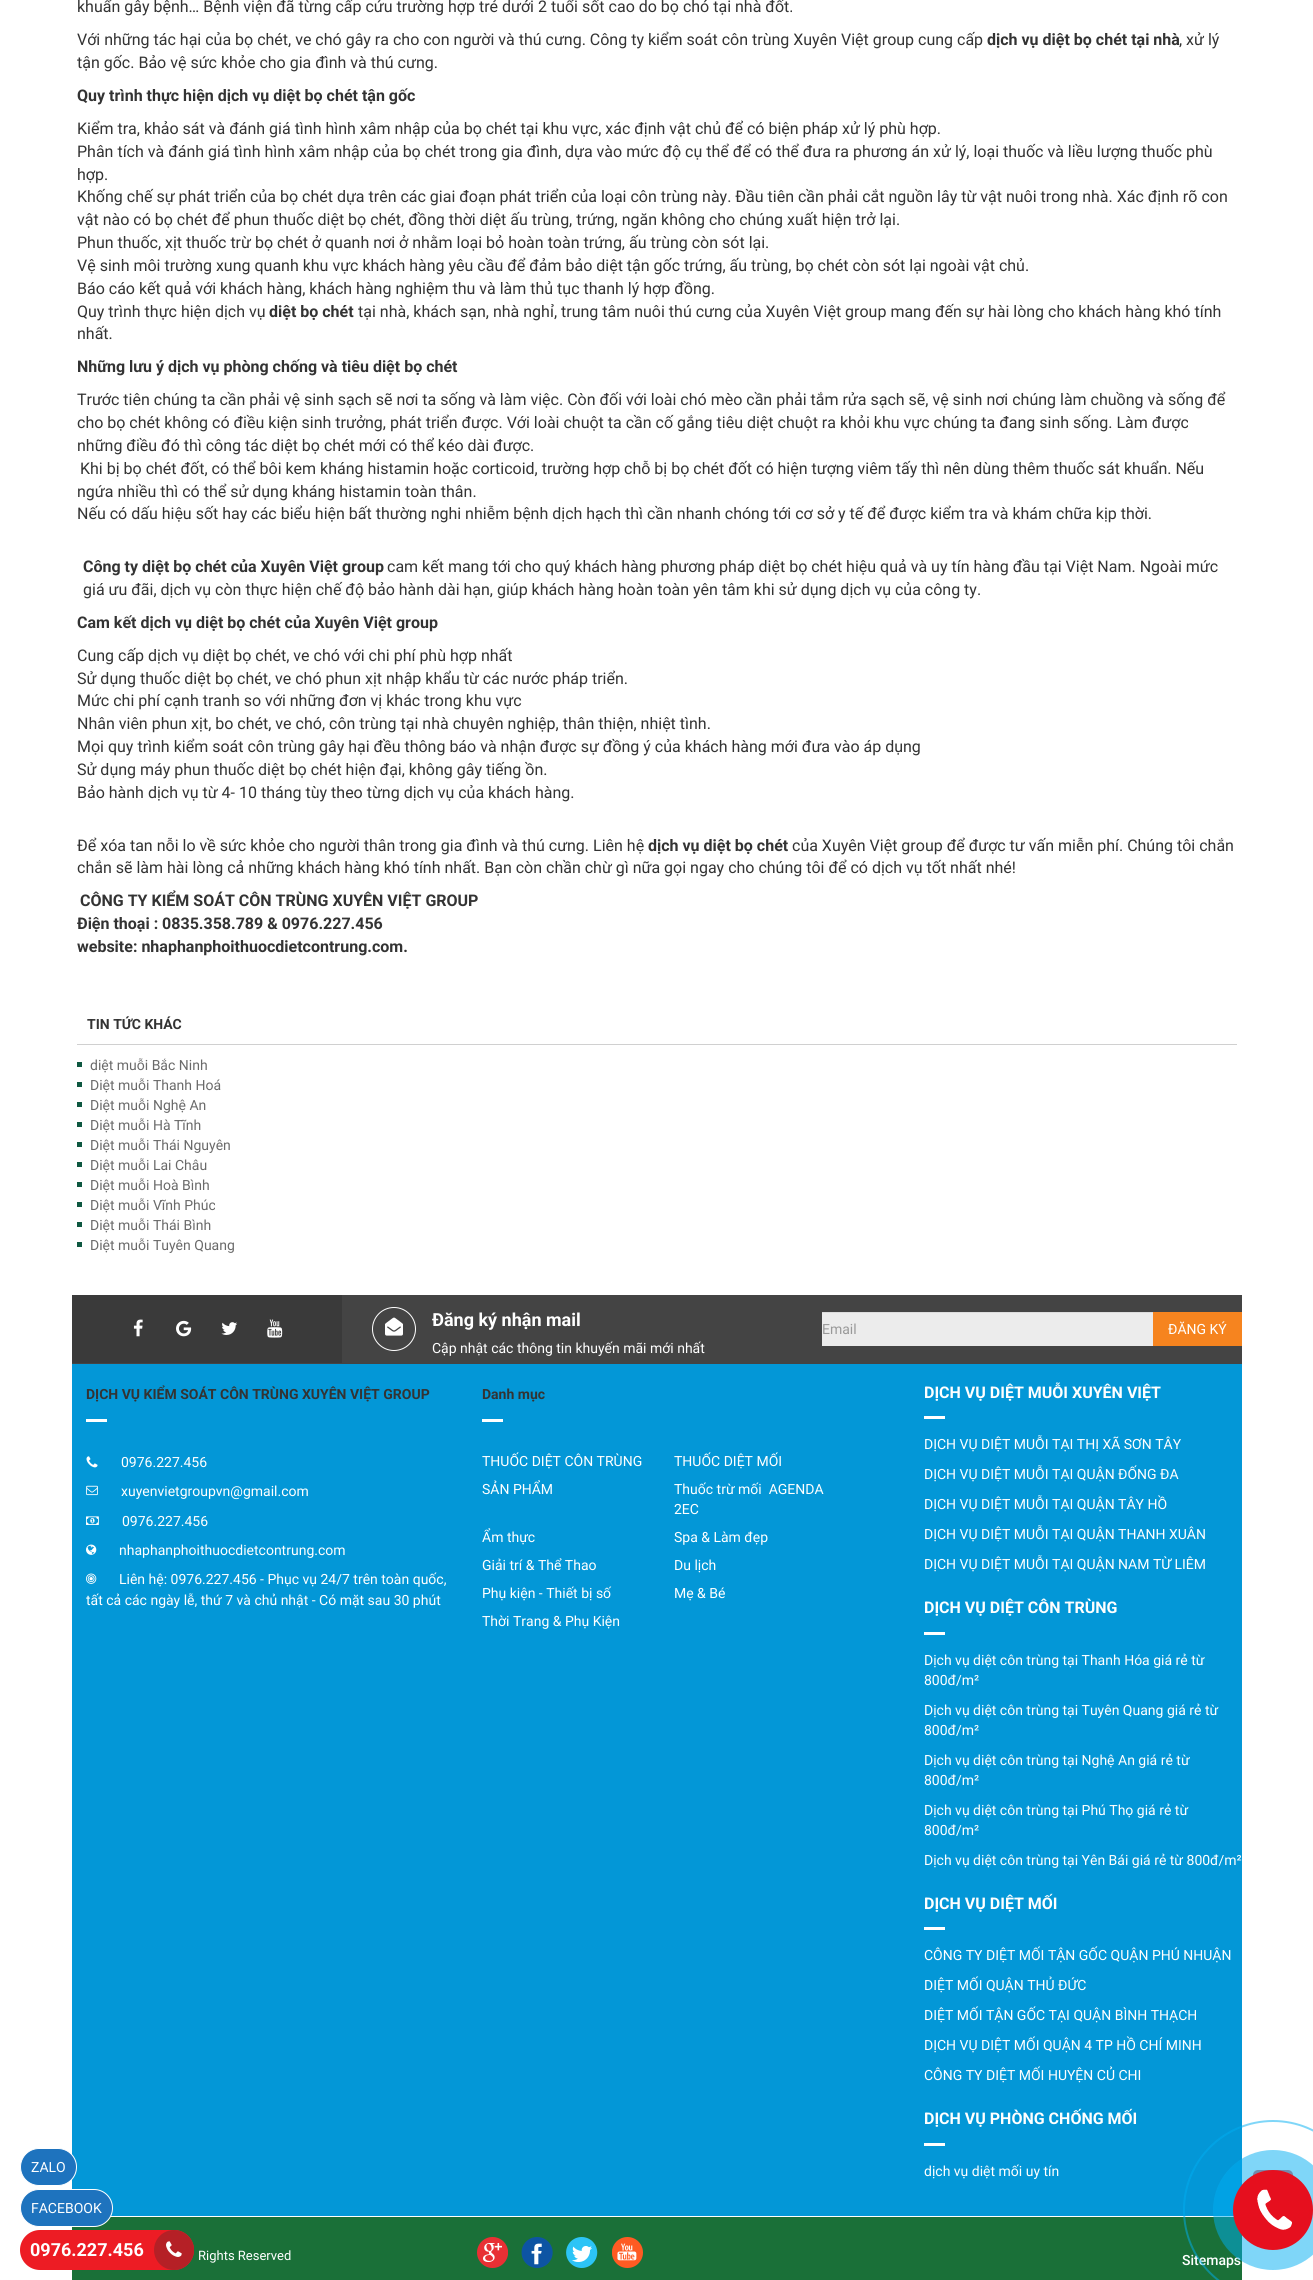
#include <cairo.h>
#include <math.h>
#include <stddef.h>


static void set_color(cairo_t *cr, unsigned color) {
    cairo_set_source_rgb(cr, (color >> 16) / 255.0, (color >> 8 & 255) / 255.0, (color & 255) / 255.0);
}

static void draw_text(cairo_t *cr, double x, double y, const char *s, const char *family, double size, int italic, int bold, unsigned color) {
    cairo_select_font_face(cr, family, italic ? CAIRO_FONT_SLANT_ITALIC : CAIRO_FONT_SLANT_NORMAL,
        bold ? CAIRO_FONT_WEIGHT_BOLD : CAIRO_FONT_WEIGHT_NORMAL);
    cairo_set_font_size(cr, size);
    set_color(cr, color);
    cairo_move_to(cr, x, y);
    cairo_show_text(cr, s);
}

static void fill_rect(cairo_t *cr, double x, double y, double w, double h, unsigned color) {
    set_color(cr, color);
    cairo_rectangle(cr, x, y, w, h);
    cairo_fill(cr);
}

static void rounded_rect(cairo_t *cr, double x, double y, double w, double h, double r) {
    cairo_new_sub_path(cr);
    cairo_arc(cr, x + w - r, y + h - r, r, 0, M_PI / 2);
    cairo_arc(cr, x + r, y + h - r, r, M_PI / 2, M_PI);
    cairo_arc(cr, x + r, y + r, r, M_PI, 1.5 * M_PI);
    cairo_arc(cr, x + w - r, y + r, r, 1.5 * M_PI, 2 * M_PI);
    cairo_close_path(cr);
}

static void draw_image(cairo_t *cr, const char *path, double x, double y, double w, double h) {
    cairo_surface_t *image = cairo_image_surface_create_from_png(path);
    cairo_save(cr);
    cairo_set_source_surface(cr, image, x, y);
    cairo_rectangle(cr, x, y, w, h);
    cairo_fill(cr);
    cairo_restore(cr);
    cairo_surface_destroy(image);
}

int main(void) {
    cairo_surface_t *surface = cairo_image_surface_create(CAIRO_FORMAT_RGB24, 1313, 2280);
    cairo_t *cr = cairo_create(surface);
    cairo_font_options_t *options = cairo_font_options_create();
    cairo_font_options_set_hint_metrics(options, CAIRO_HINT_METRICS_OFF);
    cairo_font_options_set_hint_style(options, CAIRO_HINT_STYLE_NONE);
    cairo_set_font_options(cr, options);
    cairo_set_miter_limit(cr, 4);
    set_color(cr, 0xFFFFFF);
    cairo_paint(cr);
    fill_rect(cr, 72, 1364, 1170, 852, 0x0397D7);
    set_color(cr, 0x1E73BE);
    rounded_rect(cr, 20.5, 2148.5, 56, 37, 18.5);
    cairo_fill_preserve(cr);
    set_color(cr, 0xFFFFFF);
    cairo_set_line_width(cr, 1);
    cairo_stroke(cr);
    draw_text(cr, 31, 2172, "ZALO", "Roboto", 14, 0, 0, 0xFFFFFF);
    draw_text(cr, 77, 12, "khuẩn gây bệnh… Bệnh viện đã từng cấp cứu trường hợp trẻ dưới 2 tuổi sốt cao do bọ chó tại nhà đốt.", "Roboto", 16, 0, 0, 0x333333);
    draw_text(cr, 77, 45, "Với những tác hại của bọ chét, ve chó gây ra cho con người và thú cưng. Công ty kiểm soát côn trùng Xuyên Việt group cung cấp", "Roboto", 16, 0, 0, 0x333333);
    draw_text(cr, 987, 45, "dịch vụ diệt bọ chét tại nhà", "Roboto", 16, 0, 1, 0x333333);
    draw_text(cr, 1179, 45, ", xử lý", "Roboto", 16, 0, 0, 0x333333);
    draw_text(cr, 77, 68, "tận gốc. Bảo vệ sức khỏe cho gia đình và thú cưng.", "Roboto", 16, 0, 0, 0x333333);
    draw_text(cr, 77, 101, "Quy trình thực hiện dịch vụ diệt bọ chét tận gốc", "Roboto", 16, 0, 1, 0x333333);
    draw_text(cr, 77, 134, "Kiểm tra, khảo sát và đánh giá tình hình xâm nhập của bọ chét tại khu vực, xác định vật chủ để có biện pháp xử lý phù hợp.", "Roboto", 16, 0, 0, 0x333333);
    draw_text(cr, 77, 157, "Phân tích và đánh giá tình hình xâm nhập của bọ chét trong gia đình, dựa vào mức độ cụ thể để có thể đưa ra phương án xử lý, loại thuốc và liều lượng thuốc phù", "Roboto", 16, 0, 0, 0x333333);
    draw_text(cr, 77, 180, "hợp.", "Roboto", 16, 0, 0, 0x333333);
    draw_text(cr, 77, 202, "Khống chế sự phát triển của bọ chét dựa trên các giai đoạn phát triển của loại côn trùng này. Đầu tiên cần phải cắt nguồn lây từ vật nuôi trong nhà. Xác định rõ con", "Roboto", 16, 0, 0, 0x333333);
    draw_text(cr, 77, 225, "vật nào có bọ chét để phun thuốc diệt bọ chét, đồng thời diệt ấu trùng, trứng, ngăn không cho chúng xuất hiện trở lại.", "Roboto", 16, 0, 0, 0x333333);
    draw_text(cr, 77, 248, "Phun thuốc, xịt thuốc trừ bọ chét ở quanh nơi ở nhằm loại bỏ hoàn toàn trứng, ấu trùng còn sót lại.", "Roboto", 16, 0, 0, 0x333333);
    draw_text(cr, 77, 271, "Vệ sinh môi trường xung quanh khu vực khách hàng yêu cầu để đảm bảo diệt tận gốc trứng, ấu trùng, bọ chét còn sót lại ngoài vật chủ.", "Roboto", 16, 0, 0, 0x333333);
    draw_text(cr, 77, 294, "Báo cáo kết quả với khách hàng, khách hàng nghiệm thu và làm thủ tục thanh lý hợp đồng.", "Roboto", 16, 0, 0, 0x333333);
    draw_text(cr, 77, 317, "Quy trình thực hiện dịch vụ", "Roboto", 16, 0, 0, 0x333333);
    draw_text(cr, 269, 317, "diệt bọ chét", "Roboto", 16, 0, 1, 0x333333);
    draw_text(cr, 358, 317, "tại nhà, khách sạn, nhà nghỉ, trung tâm nuôi thú cưng của Xuyên Việt group mang đến sự hài lòng cho khách hàng khó tính", "Roboto", 16, 0, 0, 0x333333);
    draw_text(cr, 77, 339, "nhất.", "Roboto", 16, 0, 0, 0x333333);
    draw_text(cr, 77, 372, "Những lưu ý dịch vụ phòng chống và tiêu diệt bọ chét", "Roboto", 16, 0, 1, 0x333333);
    draw_text(cr, 77, 405, "Trước tiên chúng ta cần phải vệ sinh sạch sẽ nơi ta sống và làm việc. Còn đối với loài chó mèo cần phải tắm rửa sạch sẽ, vệ sinh nơi chúng làm chuồng và sống để", "Roboto", 16, 0, 0, 0x333333);
    draw_text(cr, 77, 428, "cho bọ chét không có điều kiện sinh trưởng, phát triển được. Với loài chuột ta cần cố gắng tiêu diệt chuột ra khỏi khu vực chúng ta đang sinh sống. Làm được", "Roboto", 16, 0, 0, 0x333333);
    draw_text(cr, 77, 451, "những điều đó thì công tác diệt bọ chét mới có thể kéo dài được.", "Roboto", 16, 0, 0, 0x333333);
    draw_text(cr, 80, 474, "Khi bị bọ chét đốt, có thể bôi kem kháng histamin hoặc corticoid, trường hợp chỗ bị bọ chét đốt có hiện tượng viêm tấy thì nên dùng thêm thuốc sát khuẩn. Nếu", "Roboto", 16, 0, 0, 0x333333);
    draw_text(cr, 77, 497, "ngứa nhiều thì có thể sử dụng kháng histamin toàn thân.", "Roboto", 16, 0, 0, 0x333333);
    draw_text(cr, 77, 519, "Nếu có dấu hiệu sốt hay các biểu hiện bất thường nghi nhiễm bệnh dịch hạch thì cần nhanh chóng tới cơ sở y tế để được kiểm tra và khám chữa kịp thời.", "Roboto", 16, 0, 0, 0x333333);
    draw_text(cr, 83, 572, "Công ty diệt bọ chét của Xuyên Việt group", "Roboto", 16, 0, 1, 0x333333);
    draw_text(cr, 387, 572, "cam kết mang tới cho quý khách hàng phương pháp diệt bọ chét hiệu quả và uy tín hàng đầu tại Việt Nam. Ngoài mức", "Roboto", 16, 0, 0, 0x333333);
    draw_text(cr, 83, 595, "giá ưu đãi, dịch vụ còn thực hiện chế độ bảo hành dài hạn, giúp khách hàng hoàn toàn yên tâm khi sử dụng dịch vụ của công ty.", "Roboto", 16, 0, 0, 0x333333);
    draw_text(cr, 77, 628, "Cam kết dịch vụ diệt bọ chét của Xuyên Việt group", "Roboto", 16, 0, 1, 0x333333);
    draw_text(cr, 77, 661, "Cung cấp dịch vụ diệt bọ chét, ve chó với chi phí phù hợp nhất", "Roboto", 16, 0, 0, 0x333333);
    draw_text(cr, 77, 684, "Sử dụng thuốc diệt bọ chét, ve chó phun xịt nhập khẩu từ các nước pháp triển.", "Roboto", 16, 0, 0, 0x333333);
    draw_text(cr, 77, 706, "Mức chi phí cạnh tranh so với những đơn vị khác trong khu vực", "Roboto", 16, 0, 0, 0x333333);
    draw_text(cr, 77, 729, "Nhân viên phun xịt, bo chét, ve chó, côn trùng tại nhà chuyên nghiệp, thân thiện, nhiệt tình.", "Roboto", 16, 0, 0, 0x333333);
    draw_text(cr, 77, 752, "Mọi quy trình kiểm soát côn trùng gây hại đều thông báo và nhận được sự đồng ý của khách hàng mới đưa vào áp dụng", "Roboto", 16, 0, 0, 0x333333);
    draw_text(cr, 77, 775, "Sử dụng máy phun thuốc diệt bọ chét hiện đại, không gây tiếng ồn.", "Roboto", 16, 0, 0, 0x333333);
    draw_text(cr, 77, 798, "Bảo hành dịch vụ từ 4- 10 tháng tùy theo từng dịch vụ của khách hàng.", "Roboto", 16, 0, 0, 0x333333);
    draw_text(cr, 77, 851, "Để xóa tan nỗi lo về sức khỏe cho người thân trong gia đình và thú cưng. Liên hệ", "Roboto", 16, 0, 0, 0x333333);
    draw_text(cr, 648, 851, "dịch vụ diệt bọ chét", "Roboto", 16, 0, 1, 0x333333);
    draw_text(cr, 792, 851, "của Xuyên Việt group để được tư vấn miễn phí. Chúng tôi chắn", "Roboto", 16, 0, 0, 0x333333);
    draw_text(cr, 77, 873, "chắn sẽ làm hài lòng cả những khách hàng khó tính nhất. Bạn còn chần chừ gì nữa gọi ngay cho chúng tôi để có dịch vụ tốt nhất nhé!", "Roboto", 16, 0, 0, 0x333333);
    draw_text(cr, 80, 906, "CÔNG TY KIỂM SOÁT CÔN TRÙNG XUYÊN VIỆT GROUP", "Roboto", 16, 0, 1, 0x333333);
    draw_text(cr, 77, 929, "Điện thoại : 0835.358.789 & 0976.227.456", "Roboto", 16, 0, 1, 0x333333);
    draw_text(cr, 77, 952, "website: nhaphanphoithuocdietcontrung.com.", "Roboto", 16, 0, 1, 0x333333);
    fill_rect(cr, 77, 1044, 1160, 1, 0xD0D0D0);
    draw_text(cr, 87, 1029, "TIN TỨC KHÁC", "Roboto", 14, 0, 1, 0x333333);
    fill_rect(cr, 77, 1062, 5, 5, 0x0E5841);
    draw_text(cr, 90, 1070, "diệt muỗi Bắc Ninh", "Roboto", 14, 0, 0, 0x6A6A6A);
    fill_rect(cr, 77, 1082, 5, 5, 0x0E5841);
    draw_text(cr, 90, 1090, "Diệt muỗi Thanh Hoá", "Roboto", 14, 0, 0, 0x6A6A6A);
    fill_rect(cr, 77, 1102, 5, 5, 0x0E5841);
    draw_text(cr, 90, 1110, "Diệt muỗi Nghệ An", "Roboto", 14, 0, 0, 0x6A6A6A);
    fill_rect(cr, 77, 1122, 5, 5, 0x0E5841);
    draw_text(cr, 90, 1130, "Diệt muỗi Hà Tĩnh", "Roboto", 14, 0, 0, 0x6A6A6A);
    fill_rect(cr, 77, 1142, 5, 5, 0x0E5841);
    draw_text(cr, 90, 1150, "Diệt muỗi Thái Nguyên", "Roboto", 14, 0, 0, 0x6A6A6A);
    fill_rect(cr, 77, 1162, 5, 5, 0x0E5841);
    draw_text(cr, 90, 1170, "Diệt muỗi Lai Châu", "Roboto", 14, 0, 0, 0x6A6A6A);
    fill_rect(cr, 77, 1182, 5, 5, 0x0E5841);
    draw_text(cr, 90, 1190, "Diệt muỗi Hoà Bình", "Roboto", 14, 0, 0, 0x6A6A6A);
    fill_rect(cr, 77, 1202, 5, 5, 0x0E5841);
    draw_text(cr, 90, 1210, "Diệt muỗi Vĩnh Phúc", "Roboto", 14, 0, 0, 0x6A6A6A);
    fill_rect(cr, 77, 1222, 5, 5, 0x0E5841);
    draw_text(cr, 90, 1230, "Diệt muỗi Thái Bình", "Roboto", 14, 0, 0, 0x6A6A6A);
    fill_rect(cr, 77, 1242, 5, 5, 0x0E5841);
    draw_text(cr, 90, 1250, "Diệt muỗi Tuyên Quang", "Roboto", 14, 0, 0, 0x6A6A6A);
    fill_rect(cr, 72, 1295, 1170, 69, 0x444444);
    fill_rect(cr, 72, 1295, 270, 68, 0x3A3A3A);
    draw_image(cr, "assets/img1.png", 133, 1319, 10, 18);
    draw_image(cr, "assets/img2.png", 176, 1320, 16, 17);
    draw_image(cr, "assets/img3.png", 221, 1322, 17, 13);
    draw_image(cr, "assets/img4.png", 267, 1319, 16, 19);
    cairo_arc(cr, 394, 1329, 21.5, 0, 2 * M_PI);
    set_color(cr, 0xFFFFFF);
    cairo_stroke(cr);
    draw_image(cr, "assets/img5.png", 385, 1317, 18, 19);
    draw_text(cr, 432, 1326, "Đăng ký nhận mail", "Roboto", 18, 0, 1, 0xFFFFFF);
    draw_text(cr, 432, 1353, "Cập nhật các thông tin khuyến mãi mới nhất", "Roboto", 14, 0, 0, 0xFFFFFF);
    fill_rect(cr, 822, 1312, 331, 34, 0xECECEC);
    cairo_set_source_rgba(cr, 0, 0, 0, 0.07);
    cairo_new_path(cr);
    cairo_move_to(cr, 822, 1313);
    cairo_line_to(cr, 1237, 1313);
    cairo_curve_to(cr, 1240, 1313, 1242, 1315, 1242, 1318);
    cairo_curve_to(cr, 1242, 1315, 1240, 1312, 1237, 1312);
    cairo_line_to(cr, 822, 1312);
    cairo_close_path(cr);
    cairo_fill(cr);
    draw_text(cr, 822, 1334, "Email", "Roboto", 14, 0, 0, 0x999999);
    fill_rect(cr, 1153, 1312, 89, 34, 0xF6841F);
    draw_text(cr, 1168, 1334, "ĐĂNG KÝ", "Roboto", 14, 0, 0, 0xFFFFFF);
    draw_text(cr, 86, 1399, "DỊCH VỤ KIỂM SOÁT CÔN TRÙNG XUYÊN VIỆT GROUP", "Roboto", 14, 0, 1, 0x333333);
    fill_rect(cr, 86, 1419, 21, 3, 0xFFFFFF);
    draw_image(cr, "assets/img6.png", 86, 1456, 12, 12);
    draw_text(cr, 121, 1467, "0976.227.456", "Roboto", 14, 0, 0, 0xFFFFFF);
    draw_image(cr, "assets/img7.png", 86, 1485, 12, 11);
    draw_text(cr, 121, 1496, "xuyenvietgroupvn@gmail.com", "Roboto", 14, 0, 0, 0xFFFFFF);
    draw_image(cr, "assets/img8.png", 86, 1516, 13, 9);
    draw_text(cr, 122, 1526, "0976.227.456", "Roboto", 14, 0, 0, 0xFFFFFF);
    draw_image(cr, "assets/img9.png", 86, 1544, 11, 11);
    draw_text(cr, 119, 1555, "nhaphanphoithuocdietcontrung.com", "Roboto", 14, 0, 0, 0xFFFFFF);
    draw_image(cr, "assets/img10.png", 86, 1573, 11, 11);
    draw_text(cr, 119, 1584, "Liên hệ: 0976.227.456 - Phục vụ 24/7 trên toàn quốc,", "Roboto", 14, 0, 0, 0xFFFFFF);
    draw_text(cr, 86, 1605, "tất cả các ngày lễ, thứ 7 và chủ nhật - Có mặt sau 30 phút", "Roboto", 14, 0, 0, 0xFFFFFF);
    draw_text(cr, 482, 1399, "Danh mục", "Roboto", 14, 0, 1, 0x333333);
    fill_rect(cr, 482, 1419, 21, 3, 0xFFFFFF);
    draw_text(cr, 482, 1466, "THUỐC DIỆT CÔN TRÙNG", "Roboto", 14, 0, 0, 0xFFFFFF);
    draw_text(cr, 674, 1466, "THUỐC DIỆT MỐI", "Roboto", 14, 0, 0, 0xFFFFFF);
    draw_text(cr, 482, 1494, "SẢN PHẨM", "Roboto", 14, 0, 0, 0xFFFFFF);
    draw_text(cr, 674, 1494, "Thuốc trừ mối  AGENDA", "Roboto", 14, 0, 0, 0xFFFFFF);
    draw_text(cr, 674, 1514, "2EC", "Roboto", 14, 0, 0, 0xFFFFFF);
    draw_text(cr, 482, 1542, "Ẩm thực", "Roboto", 14, 0, 0, 0xFFFFFF);
    draw_text(cr, 674, 1542, "Spa & Làm đẹp", "Roboto", 14, 0, 0, 0xFFFFFF);
    draw_text(cr, 482, 1570, "Giải trí & Thể Thao", "Roboto", 14, 0, 0, 0xFFFFFF);
    draw_text(cr, 674, 1570, "Du lịch", "Roboto", 14, 0, 0, 0xFFFFFF);
    draw_text(cr, 482, 1598, "Phụ kiện - Thiết bị số", "Roboto", 14, 0, 0, 0xFFFFFF);
    draw_text(cr, 674, 1598, "Mẹ & Bé", "Roboto", 14, 0, 0, 0xFFFFFF);
    draw_text(cr, 482, 1626, "Thời Trang & Phụ Kiện", "Roboto", 14, 0, 0, 0xFFFFFF);
    draw_text(cr, 924, 1398, "DỊCH VỤ DIỆT MUỖI XUYÊN VIỆT", "Roboto", 16, 0, 1, 0xFFFFFF);
    fill_rect(cr, 924, 1416, 21, 3, 0xFFFFFF);
    draw_text(cr, 924, 1449, "DỊCH VỤ DIỆT MUỖI TẠI THỊ XÃ SƠN TÂY", "Roboto", 14, 0, 0, 0xFFFFFF);
    draw_text(cr, 924, 1479, "DỊCH VỤ DIỆT MUỖI TẠI QUẬN ĐỐNG ĐA", "Roboto", 14, 0, 0, 0xFFFFFF);
    draw_text(cr, 924, 1509, "DỊCH VỤ DIỆT MUỖI TẠI QUẬN TÂY HỒ", "Roboto", 14, 0, 0, 0xFFFFFF);
    draw_text(cr, 924, 1539, "DỊCH VỤ DIỆT MUỖI TẠI QUẬN THANH XUÂN", "Roboto", 14, 0, 0, 0xFFFFFF);
    draw_text(cr, 924, 1569, "DỊCH VỤ DIỆT MUỖI TẠI QUẬN NAM TỪ LIÊM", "Roboto", 14, 0, 0, 0xFFFFFF);
    draw_text(cr, 924, 1613, "DỊCH VỤ DIỆT CÔN TRÙNG", "Roboto", 16, 0, 1, 0xFFFFFF);
    fill_rect(cr, 924, 1632, 21, 3, 0xFFFFFF);
    draw_text(cr, 924, 1665, "Dịch vụ diệt côn trùng tại Thanh Hóa giá rẻ từ", "Roboto", 14, 0, 0, 0xFFFFFF);
    draw_text(cr, 924, 1685, "800đ/m²", "Roboto", 14, 0, 0, 0xFFFFFF);
    draw_text(cr, 924, 1715, "Dịch vụ diệt côn trùng tại Tuyên Quang giá rẻ từ", "Roboto", 14, 0, 0, 0xFFFFFF);
    draw_text(cr, 924, 1735, "800đ/m²", "Roboto", 14, 0, 0, 0xFFFFFF);
    draw_text(cr, 924, 1765, "Dịch vụ diệt côn trùng tại Nghệ An giá rẻ từ", "Roboto", 14, 0, 0, 0xFFFFFF);
    draw_text(cr, 924, 1785, "800đ/m²", "Roboto", 14, 0, 0, 0xFFFFFF);
    draw_text(cr, 924, 1815, "Dịch vụ diệt côn trùng tại Phú Thọ giá rẻ từ", "Roboto", 14, 0, 0, 0xFFFFFF);
    draw_text(cr, 924, 1835, "800đ/m²", "Roboto", 14, 0, 0, 0xFFFFFF);
    draw_text(cr, 924, 1865, "Dịch vụ diệt côn trùng tại Yên Bái giá rẻ từ 800đ/m²", "Roboto", 14, 0, 0, 0xFFFFFF);
    draw_text(cr, 924, 1909, "DỊCH VỤ DIỆT MỐI", "Roboto", 16, 0, 1, 0xFFFFFF);
    fill_rect(cr, 924, 1927, 21, 3, 0xFFFFFF);
    draw_text(cr, 924, 1960, "CÔNG TY DIỆT MỐI TẬN GỐC QUẬN PHÚ NHUẬN", "Roboto", 14, 0, 0, 0xFFFFFF);
    draw_text(cr, 924, 1990, "DIỆT MỐI QUẬN THỦ ĐỨC", "Roboto", 14, 0, 0, 0xFFFFFF);
    draw_text(cr, 924, 2020, "DIỆT MỐI TẬN GỐC TẠI QUẬN BÌNH THẠCH", "Roboto", 14, 0, 0, 0xFFFFFF);
    draw_text(cr, 924, 2050, "DỊCH VỤ DIỆT MỐI QUẬN 4 TP HỒ CHÍ MINH", "Roboto", 14, 0, 0, 0xFFFFFF);
    draw_text(cr, 924, 2080, "CÔNG TY DIỆT MỐI HUYỆN CỦ CHI", "Roboto", 14, 0, 0, 0xFFFFFF);
    draw_text(cr, 924, 2124, "DỊCH VỤ PHÒNG CHỐNG MỐI", "Roboto", 16, 0, 1, 0xFFFFFF);
    fill_rect(cr, 924, 2143, 21, 3, 0xFFFFFF);
    draw_text(cr, 924, 2176, "dịch vụ diệt mối uy tín", "Roboto", 14, 0, 0, 0xFFFFFF);
    fill_rect(cr, 72, 2217, 1170, 63, 0x1A7038);
    draw_text(cr, 198, 2260, "Rights Reserved", "Roboto", 13, 0, 0, 0xFFFFFF);
    draw_image(cr, "assets/img11.png", 477, 2237, 31, 31);
    draw_image(cr, "assets/img12.png", 521, 2237, 32, 31);
    draw_image(cr, "assets/img13.png", 566, 2237, 32, 31);
    draw_image(cr, "assets/img14.png", 612, 2237, 31, 31);
    draw_text(cr, 1182, 2265, "Sitemaps", "Roboto Medium", 14, 0, 0, 0xFFFFFF);
    set_color(cr, 0xE56969);
    rounded_rect(cr, 1253, 2170, 40, 40, 5);
    cairo_fill(cr);
    cairo_arc(cr, 1273, 2210, 89, 0, 2 * M_PI);
    cairo_set_source_rgba(cr, 0, 0.686, 0.949, 0.5);
    cairo_set_line_width(cr, 2);
    cairo_stroke(cr);
    cairo_arc(cr, 1273, 2210, 60, 0, 2 * M_PI);
    cairo_fill(cr);
    set_color(cr, 0xE60F1E);
    cairo_arc(cr, 1273, 2210, 40, 0, 2 * M_PI);
    cairo_fill(cr);
    draw_image(cr, "assets/img15.png", 1257, 2189, 35, 41);
    set_color(cr, 0x1E73BE);
    rounded_rect(cr, 20.5, 2189.5, 92, 37, 18.5);
    cairo_fill_preserve(cr);
    set_color(cr, 0xFFFFFF);
    cairo_set_line_width(cr, 1);
    cairo_stroke(cr);
    draw_text(cr, 31, 2213, "FACEBOOK", "Roboto", 14, 0, 0, 0xFFFFFF);
    set_color(cr, 0xED1C24);
    rounded_rect(cr, 20, 2230, 174, 40, 20);
    cairo_fill(cr);
    draw_text(cr, 30, 2256, "0976.227.456", "Roboto", 18, 0, 1, 0xFFFFFF);
    set_color(cr, 0xB52026);
    cairo_new_path(cr);
    cairo_arc(cr, 174, 2250, 20, 0, 2 * M_PI);
    cairo_fill(cr);
    draw_image(cr, "assets/img16.png", 166, 2241, 16, 16);
    cairo_surface_write_to_png(surface, "output.png");
    cairo_font_options_destroy(options);
    cairo_destroy(cr);
    cairo_surface_destroy(surface);
    return 0;
}
